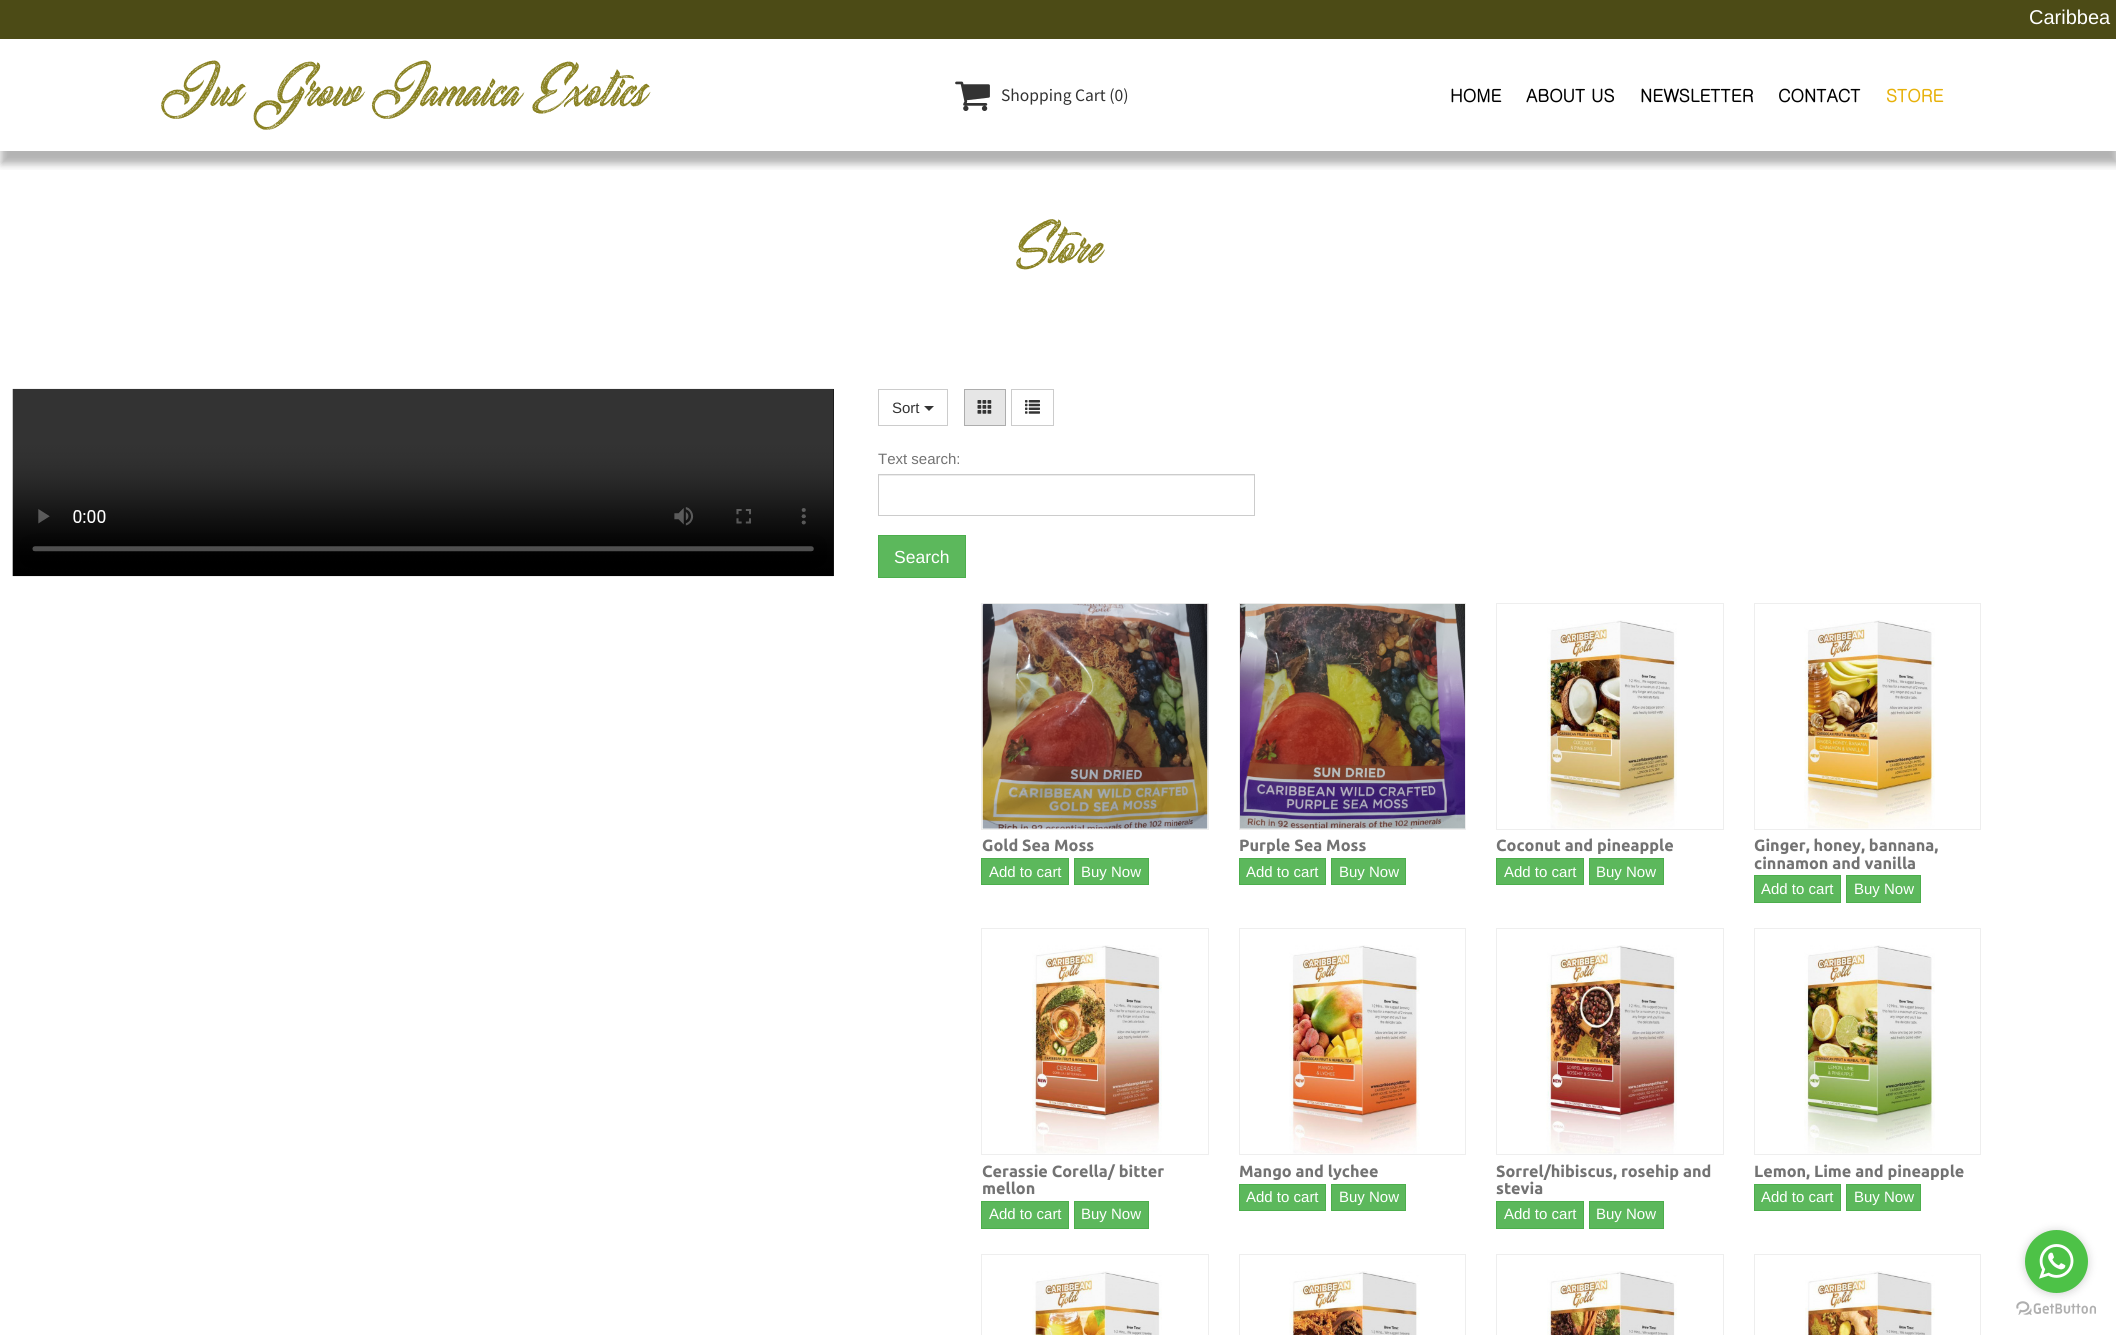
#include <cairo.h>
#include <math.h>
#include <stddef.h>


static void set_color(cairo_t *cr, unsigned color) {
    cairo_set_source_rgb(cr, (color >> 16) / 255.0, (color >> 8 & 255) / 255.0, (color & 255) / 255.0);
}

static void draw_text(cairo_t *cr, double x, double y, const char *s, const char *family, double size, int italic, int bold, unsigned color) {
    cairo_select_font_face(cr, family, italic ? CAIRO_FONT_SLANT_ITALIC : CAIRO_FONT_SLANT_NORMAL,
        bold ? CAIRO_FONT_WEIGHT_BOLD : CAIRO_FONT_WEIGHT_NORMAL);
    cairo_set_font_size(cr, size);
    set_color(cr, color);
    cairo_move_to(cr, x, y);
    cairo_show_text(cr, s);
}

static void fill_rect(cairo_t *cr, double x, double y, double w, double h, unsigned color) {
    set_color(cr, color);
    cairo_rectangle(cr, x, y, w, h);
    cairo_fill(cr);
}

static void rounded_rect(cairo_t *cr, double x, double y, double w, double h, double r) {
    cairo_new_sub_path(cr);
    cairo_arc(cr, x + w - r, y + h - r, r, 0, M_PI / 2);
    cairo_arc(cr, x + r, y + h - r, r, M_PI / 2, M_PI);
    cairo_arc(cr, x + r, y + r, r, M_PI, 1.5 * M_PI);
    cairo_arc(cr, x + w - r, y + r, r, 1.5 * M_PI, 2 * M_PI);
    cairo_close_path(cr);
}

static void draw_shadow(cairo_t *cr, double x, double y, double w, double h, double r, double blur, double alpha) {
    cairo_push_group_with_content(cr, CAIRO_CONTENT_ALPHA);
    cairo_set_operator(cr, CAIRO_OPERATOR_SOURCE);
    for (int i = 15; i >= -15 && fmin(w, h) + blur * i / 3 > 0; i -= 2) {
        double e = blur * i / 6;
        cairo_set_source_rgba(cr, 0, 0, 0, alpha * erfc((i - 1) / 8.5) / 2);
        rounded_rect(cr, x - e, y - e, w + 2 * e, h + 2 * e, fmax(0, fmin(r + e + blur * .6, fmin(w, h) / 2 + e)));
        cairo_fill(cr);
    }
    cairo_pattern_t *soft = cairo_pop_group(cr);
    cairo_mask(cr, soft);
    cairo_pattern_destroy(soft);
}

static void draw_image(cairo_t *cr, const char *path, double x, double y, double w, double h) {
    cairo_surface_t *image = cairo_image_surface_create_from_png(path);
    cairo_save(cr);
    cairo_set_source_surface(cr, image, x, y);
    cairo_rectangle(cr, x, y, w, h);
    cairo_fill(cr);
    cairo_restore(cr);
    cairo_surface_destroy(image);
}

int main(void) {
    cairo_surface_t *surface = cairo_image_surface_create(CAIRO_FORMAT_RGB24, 2116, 1335);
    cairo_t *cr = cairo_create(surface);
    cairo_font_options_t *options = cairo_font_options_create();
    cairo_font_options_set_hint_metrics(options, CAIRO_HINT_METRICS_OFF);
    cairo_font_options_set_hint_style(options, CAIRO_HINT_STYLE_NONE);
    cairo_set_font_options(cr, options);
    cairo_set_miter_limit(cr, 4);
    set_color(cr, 0xFFFFFF);
    cairo_paint(cr);
    cairo_save(cr);
    cairo_rectangle(cr, 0, 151, 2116, 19);
    cairo_clip(cr);
    set_color(cr, 0x000000);
    draw_shadow(cr, 1, 13, 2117, 151, 0, 4, 0.3);
    cairo_restore(cr);
    fill_rect(cr, 0, 0, 2116, 39, 0x4C4B16);
    draw_text(cr, 2029, 24, "Caribbea", "Liberation Sans", 20, 0, 0, 0xFFFFFF);
    draw_text(cr, 161, 106, "Jus Grow Jamaica Exotics", "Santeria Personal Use", 50, 0, 0, 0x898121);
    draw_image(cr, "assets/img1.png", 955, 81, 35, 30);
    draw_text(cr, 1001, 101, "Shopping Cart (0)", "Source Sans Pro", 17.5, 0, 0, 0x333333);
    draw_text(cr, 1450, 102, "HOME", "Gulim", 17.5, 0, 1, 0x000000);
    draw_text(cr, 1526, 102, "ABOUT US", "Gulim", 17.5, 0, 1, 0x000000);
    draw_text(cr, 1640, 102, "NEWSLETTER", "Gulim", 17.5, 0, 1, 0x000000);
    draw_text(cr, 1778, 102, "CONTACT", "Gulim", 17.5, 0, 1, 0x000000);
    draw_text(cr, 1886, 102, "STORE", "Gulim", 17.5, 0, 1, 0xE7B10A);
    draw_text(cr, 1015, 263, "Store", "Santeria Personal Use", 50, 0, 0, 0x898121);
    fill_rect(cr, 833, 389, 1, 187, 0x000000);
    draw_image(cr, "assets/img2.png", 12, 388, 822, 189);
    cairo_rectangle(cr, 878.5, 389.5, 69, 36);
    set_color(cr, 0xCCCCCC);
    cairo_set_line_width(cr, 1);
    cairo_stroke(cr);
    draw_text(cr, 892, 413, "Sort", "Liberation Sans", 15, 0, 0, 0x333333);
    cairo_new_path(cr);
    cairo_move_to(cr, 924, 406);
    cairo_line_to(cr, 934, 406);
    cairo_line_to(cr, 929, 411);
    cairo_close_path(cr);
    cairo_fill(cr);
    set_color(cr, 0xE6E6E6);
    cairo_rectangle(cr, 964.5, 389.5, 41, 36);
    cairo_fill_preserve(cr);
    set_color(cr, 0xADADAD);
    cairo_stroke(cr);
    draw_image(cr, "assets/img3.png", 977, 400, 15, 14);
    cairo_rectangle(cr, 1011.5, 389.5, 42, 36);
    set_color(cr, 0xCCCCCC);
    cairo_stroke(cr);
    draw_image(cr, "assets/img4.png", 1025, 400, 15, 14);
    draw_text(cr, 878, 464, "Text search:", "Liberation Sans", 15, 0, 0, 0x737373);
    fill_rect(cr, 879, 475, 375, 1, 0xECECEC);
    cairo_rectangle(cr, 878.5, 474.5, 376, 41);
    set_color(cr, 0xCCCCCC);
    cairo_stroke(cr);
    set_color(cr, 0x5CB85C);
    cairo_rectangle(cr, 878.5, 535.5, 87, 42);
    cairo_fill_preserve(cr);
    set_color(cr, 0x4CAE4C);
    cairo_stroke(cr);
    draw_text(cr, 894, 563, "Search", "Liberation Sans", 17.5, 0, 0, 0xFFFFFF);
    cairo_rectangle(cr, 981.5, 603.5, 227, 226);
    set_color(cr, 0xEEEEEE);
    cairo_stroke(cr);
    draw_image(cr, "assets/img5.png", 982, 603, 226, 226);
    draw_text(cr, 982, 851, "Gold Sea Moss", "Ubuntu", 16.25, 0, 1, 0x737373);
    set_color(cr, 0x5CB85C);
    cairo_rectangle(cr, 981.5, 858.5, 87, 26);
    cairo_fill_preserve(cr);
    set_color(cr, 0x4CAE4C);
    cairo_stroke(cr);
    draw_text(cr, 989, 877, "Add to cart", "Liberation Sans", 15, 0, 0, 0xFFFFFF);
    set_color(cr, 0x5CB85C);
    cairo_rectangle(cr, 1074.5, 858.5, 74, 26);
    cairo_fill_preserve(cr);
    set_color(cr, 0x4CAE4C);
    cairo_stroke(cr);
    draw_text(cr, 1081, 877, "Buy Now", "Liberation Sans", 15, 0, 0, 0xFFFFFF);
    cairo_rectangle(cr, 1239.5, 603.5, 226, 226);
    set_color(cr, 0xEEEEEE);
    cairo_stroke(cr);
    draw_image(cr, "assets/img6.png", 1240, 603, 225, 226);
    draw_text(cr, 1239, 851, "Purple Sea Moss", "Ubuntu", 16.25, 0, 1, 0x737373);
    set_color(cr, 0x5CB85C);
    cairo_rectangle(cr, 1239.5, 858.5, 86, 26);
    cairo_fill_preserve(cr);
    set_color(cr, 0x4CAE4C);
    cairo_stroke(cr);
    draw_text(cr, 1246, 877, "Add to cart", "Liberation Sans", 15, 0, 0, 0xFFFFFF);
    set_color(cr, 0x5CB85C);
    cairo_rectangle(cr, 1331.5, 858.5, 74, 26);
    cairo_fill_preserve(cr);
    set_color(cr, 0x4CAE4C);
    cairo_stroke(cr);
    draw_text(cr, 1339, 877, "Buy Now", "Liberation Sans", 15, 0, 0, 0xFFFFFF);
    cairo_rectangle(cr, 1496.5, 603.5, 227, 226);
    set_color(cr, 0xEEEEEE);
    cairo_stroke(cr);
    draw_image(cr, "assets/img7.png", 1547, 620, 130, 209);
    draw_text(cr, 1496, 851, "Coconut and pineapple", "Ubuntu", 16.25, 0, 1, 0x737373);
    set_color(cr, 0x5CB85C);
    cairo_rectangle(cr, 1496.5, 858.5, 87, 26);
    cairo_fill_preserve(cr);
    set_color(cr, 0x4CAE4C);
    cairo_stroke(cr);
    draw_text(cr, 1504, 877, "Add to cart", "Liberation Sans", 15, 0, 0, 0xFFFFFF);
    set_color(cr, 0x5CB85C);
    cairo_rectangle(cr, 1589.5, 858.5, 74, 26);
    cairo_fill_preserve(cr);
    set_color(cr, 0x4CAE4C);
    cairo_stroke(cr);
    draw_text(cr, 1596, 877, "Buy Now", "Liberation Sans", 15, 0, 0, 0xFFFFFF);
    cairo_rectangle(cr, 1754.5, 603.5, 226, 226);
    set_color(cr, 0xEEEEEE);
    cairo_stroke(cr);
    draw_image(cr, "assets/img8.png", 1804, 620, 131, 209);
    draw_text(cr, 1754, 851, "Ginger, honey, bannana,", "Ubuntu", 16.25, 0, 1, 0x737373);
    draw_text(cr, 1754, 869, "cinnamon and vanilla", "Ubuntu", 16.25, 0, 1, 0x737373);
    set_color(cr, 0x5CB85C);
    cairo_rectangle(cr, 1754.5, 875.5, 86, 27);
    cairo_fill_preserve(cr);
    set_color(cr, 0x4CAE4C);
    cairo_stroke(cr);
    draw_text(cr, 1761, 894, "Add to cart", "Liberation Sans", 15, 0, 0, 0xFFFFFF);
    set_color(cr, 0x5CB85C);
    cairo_rectangle(cr, 1846.5, 875.5, 74, 27);
    cairo_fill_preserve(cr);
    set_color(cr, 0x4CAE4C);
    cairo_stroke(cr);
    draw_text(cr, 1854, 894, "Buy Now", "Liberation Sans", 15, 0, 0, 0xFFFFFF);
    cairo_rectangle(cr, 981.5, 928.5, 227, 226);
    set_color(cr, 0xEEEEEE);
    cairo_stroke(cr);
    draw_image(cr, "assets/img9.png", 1032, 945, 130, 209);
    draw_text(cr, 982, 1177, "Cerassie Corella/ bitter", "Ubuntu", 16.25, 0, 1, 0x737373);
    draw_text(cr, 982, 1194, "mellon", "Ubuntu", 16.25, 0, 1, 0x737373);
    set_color(cr, 0x5CB85C);
    cairo_rectangle(cr, 981.5, 1201.5, 87, 27);
    cairo_fill_preserve(cr);
    set_color(cr, 0x4CAE4C);
    cairo_stroke(cr);
    draw_text(cr, 989, 1219, "Add to cart", "Liberation Sans", 15, 0, 0, 0xFFFFFF);
    set_color(cr, 0x5CB85C);
    cairo_rectangle(cr, 1074.5, 1201.5, 74, 27);
    cairo_fill_preserve(cr);
    set_color(cr, 0x4CAE4C);
    cairo_stroke(cr);
    draw_text(cr, 1081, 1219, "Buy Now", "Liberation Sans", 15, 0, 0, 0xFFFFFF);
    cairo_rectangle(cr, 1239.5, 928.5, 226, 226);
    set_color(cr, 0xEEEEEE);
    cairo_stroke(cr);
    draw_image(cr, "assets/img10.png", 1289, 945, 131, 209);
    draw_text(cr, 1239, 1177, "Mango and lychee", "Ubuntu", 16.25, 0, 1, 0x737373);
    set_color(cr, 0x5CB85C);
    cairo_rectangle(cr, 1239.5, 1184.5, 86, 26);
    cairo_fill_preserve(cr);
    set_color(cr, 0x4CAE4C);
    cairo_stroke(cr);
    draw_text(cr, 1246, 1202, "Add to cart", "Liberation Sans", 15, 0, 0, 0xFFFFFF);
    set_color(cr, 0x5CB85C);
    cairo_rectangle(cr, 1331.5, 1184.5, 74, 26);
    cairo_fill_preserve(cr);
    set_color(cr, 0x4CAE4C);
    cairo_stroke(cr);
    draw_text(cr, 1339, 1202, "Buy Now", "Liberation Sans", 15, 0, 0, 0xFFFFFF);
    cairo_rectangle(cr, 1496.5, 928.5, 227, 226);
    set_color(cr, 0xEEEEEE);
    cairo_stroke(cr);
    draw_image(cr, "assets/img11.png", 1546, 945, 131, 209);
    draw_text(cr, 1496, 1177, "Sorrel/hibiscus, rosehip and", "Ubuntu", 16.25, 0, 1, 0x737373);
    draw_text(cr, 1496, 1194, "stevia", "Ubuntu", 16.25, 0, 1, 0x737373);
    set_color(cr, 0x5CB85C);
    cairo_rectangle(cr, 1496.5, 1201.5, 87, 27);
    cairo_fill_preserve(cr);
    set_color(cr, 0x4CAE4C);
    cairo_stroke(cr);
    draw_text(cr, 1504, 1219, "Add to cart", "Liberation Sans", 15, 0, 0, 0xFFFFFF);
    set_color(cr, 0x5CB85C);
    cairo_rectangle(cr, 1589.5, 1201.5, 74, 27);
    cairo_fill_preserve(cr);
    set_color(cr, 0x4CAE4C);
    cairo_stroke(cr);
    draw_text(cr, 1596, 1219, "Buy Now", "Liberation Sans", 15, 0, 0, 0xFFFFFF);
    cairo_rectangle(cr, 1754.5, 928.5, 226, 226);
    set_color(cr, 0xEEEEEE);
    cairo_stroke(cr);
    draw_image(cr, "assets/img12.png", 1804, 945, 131, 209);
    draw_text(cr, 1754, 1177, "Lemon, Lime and pineapple", "Ubuntu", 16.25, 0, 1, 0x737373);
    set_color(cr, 0x5CB85C);
    cairo_rectangle(cr, 1754.5, 1184.5, 86, 26);
    cairo_fill_preserve(cr);
    set_color(cr, 0x4CAE4C);
    cairo_stroke(cr);
    draw_text(cr, 1761, 1202, "Add to cart", "Liberation Sans", 15, 0, 0, 0xFFFFFF);
    set_color(cr, 0x5CB85C);
    cairo_rectangle(cr, 1846.5, 1184.5, 74, 26);
    cairo_fill_preserve(cr);
    set_color(cr, 0x4CAE4C);
    cairo_stroke(cr);
    draw_text(cr, 1854, 1202, "Buy Now", "Liberation Sans", 15, 0, 0, 0xFFFFFF);
    cairo_rectangle(cr, 981.5, 1254.5, 227, 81);
    set_color(cr, 0xEEEEEE);
    cairo_stroke(cr);
    draw_image(cr, "assets/img13.png", 1032, 1271, 130, 64);
    cairo_rectangle(cr, 1239.5, 1254.5, 226, 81);
    cairo_stroke(cr);
    draw_image(cr, "assets/img14.png", 1289, 1271, 131, 64);
    cairo_rectangle(cr, 1496.5, 1254.5, 227, 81);
    cairo_stroke(cr);
    draw_image(cr, "assets/img15.png", 1547, 1271, 130, 64);
    cairo_rectangle(cr, 1754.5, 1254.5, 226, 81);
    cairo_stroke(cr);
    draw_image(cr, "assets/img16.png", 1805, 1271, 130, 64);
    draw_image(cr, "assets/img18.png", 2016, 1301, 80, 14);
    set_color(cr, 0x888888);
    draw_shadow(cr, 2025, 1231, 63, 63, 31.5, 4.5, 0.4);
    set_color(cr, 0x4DC247);
    cairo_arc(cr, 2056.5, 1261.5, 31.5, 0, 2 * M_PI);
    cairo_fill(cr);
    draw_image(cr, "assets/img17.png", 2039, 1244, 35, 35);
    cairo_surface_write_to_png(surface, "output.png");
    cairo_font_options_destroy(options);
    cairo_destroy(cr);
    cairo_surface_destroy(surface);
    return 0;
}
